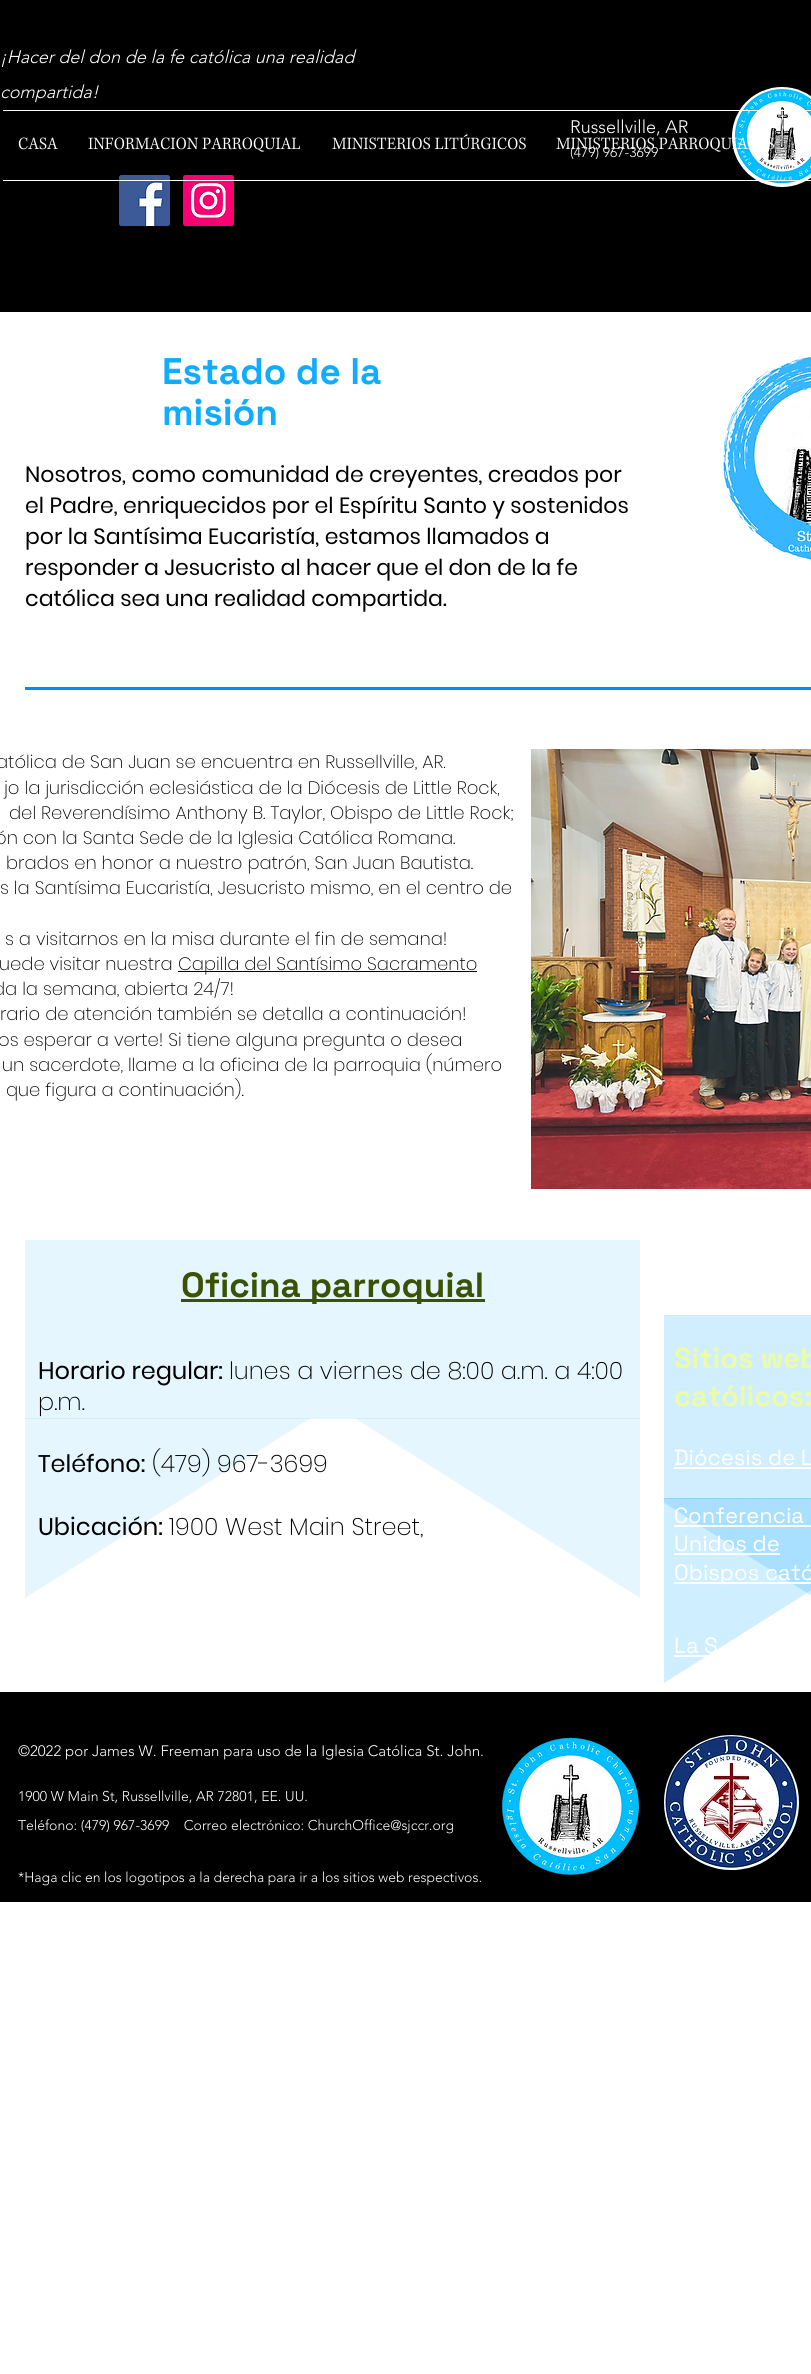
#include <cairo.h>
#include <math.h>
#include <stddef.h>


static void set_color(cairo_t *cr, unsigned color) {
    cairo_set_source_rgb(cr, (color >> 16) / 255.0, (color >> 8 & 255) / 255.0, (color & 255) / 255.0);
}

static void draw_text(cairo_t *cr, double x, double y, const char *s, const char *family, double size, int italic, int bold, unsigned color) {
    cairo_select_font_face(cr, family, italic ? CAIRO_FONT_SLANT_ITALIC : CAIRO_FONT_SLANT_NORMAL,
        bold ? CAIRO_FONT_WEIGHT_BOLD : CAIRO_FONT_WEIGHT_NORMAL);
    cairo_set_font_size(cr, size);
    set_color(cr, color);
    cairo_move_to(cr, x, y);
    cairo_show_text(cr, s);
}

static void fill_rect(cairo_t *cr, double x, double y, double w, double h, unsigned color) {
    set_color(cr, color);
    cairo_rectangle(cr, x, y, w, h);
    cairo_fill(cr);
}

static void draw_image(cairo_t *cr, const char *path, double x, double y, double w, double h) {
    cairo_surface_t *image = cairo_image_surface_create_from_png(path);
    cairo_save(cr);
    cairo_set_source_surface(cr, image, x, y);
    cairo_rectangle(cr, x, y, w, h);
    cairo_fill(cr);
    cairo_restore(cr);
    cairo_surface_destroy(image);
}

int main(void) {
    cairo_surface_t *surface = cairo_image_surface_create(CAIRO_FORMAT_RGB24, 811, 2374);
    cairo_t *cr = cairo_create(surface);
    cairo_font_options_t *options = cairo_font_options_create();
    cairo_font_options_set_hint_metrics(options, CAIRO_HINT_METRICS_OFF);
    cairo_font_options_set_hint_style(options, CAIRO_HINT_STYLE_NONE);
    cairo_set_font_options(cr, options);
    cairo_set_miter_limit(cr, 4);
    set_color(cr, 0xFFFFFF);
    cairo_paint(cr);
    fill_rect(cr, 0, 0, 811, 312, 0x000000);
    draw_text(cr, 0, 63, "¡Hacer del don de la fe católica una realidad", "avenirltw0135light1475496 Light", 18, 1, 0, 0xFFFFFF);
    draw_text(cr, 0, 98, "compartida!", "avenirltw0135light1475496 Light", 18, 1, 0, 0xFFFFFF);
    draw_image(cr, "assets/img1.png", 119, 175, 51, 51);
    draw_image(cr, "assets/img2.png", 183, 175, 51, 51);
    draw_text(cr, 570, 133, "Russellville, AR", "avenirltw0135light1475496 Light", 18, 0, 0, 0xFFFFFF);
    draw_image(cr, "assets/img3.png", 732, 87, 79, 100);
    draw_text(cr, 570, 157, "(479) 967-3699", "avenirltw0135light1475496 Light", 14, 0, 0, 0xFFFFFF);
    fill_rect(cr, 3, 110, 808, 1, 0xFFFFFF);
    fill_rect(cr, 3, 180, 808, 1, 0xFFFFFF);
    draw_image(cr, "assets/img4.png", 18, 137, 40, 13);
    draw_image(cr, "assets/img5.png", 88, 137, 212, 15);
    draw_image(cr, "assets/img6.png", 332, 134, 194, 16);
    draw_image(cr, "assets/img7.png", 556, 137, 218, 15);
    draw_text(cr, 162, 384, "Estado de la", "Space Grotesk", 37, 0, 1, 0x12ACFF);
    draw_text(cr, 162, 425, "misión", "Space Grotesk", 37, 0, 1, 0x12ACFF);
    draw_image(cr, "assets/img8.png", 723, 356, 88, 204);
    draw_text(cr, 25, 482, "Nosotros, como comunidad de creyentes, creados por", "Poppins", 22, 0, 0, 0x000000);
    draw_text(cr, 25, 513, "el Padre, enriquecidos por el Espíritu Santo y sostenidos", "Poppins", 22, 0, 0, 0x000000);
    draw_text(cr, 25, 544, "por la Santísima Eucaristía, estamos llamados a", "Poppins", 22, 0, 0, 0x000000);
    draw_text(cr, 25, 575, "responder a Jesucristo al hacer que el don de la fe", "Poppins", 22, 0, 0, 0x000000);
    draw_text(cr, 25, 606, "católica sea una realidad compartida.", "Poppins", 22, 0, 0, 0x000000);
    fill_rect(cr, 25, 687, 786, 3, 0x008AFC);
    draw_text(cr, -4, 768, "atólica de San Juan se encuentra en Russellville, AR.", "Poppins ExtraLight", 18, 0, 0, 0x000000);
    draw_text(cr, 4, 794, "jo la jurisdicción eclesiástica de la Diócesis de Little Rock,", "Poppins ExtraLight", 18, 0, 0, 0x000000);
    draw_text(cr, 9, 819, "del Reverendísimo Anthony B. Taylor, Obispo de Little Rock;", "Poppins ExtraLight", 18, 0, 0, 0x000000);
    draw_text(cr, -5, 844, "ón con la Santa Sede de la Iglesia Católica Romana.", "Poppins ExtraLight", 18, 0, 0, 0x000000);
    draw_text(cr, 6, 869, "brados en honor a nuestro patrón, San Juan Bautista.", "Poppins ExtraLight", 18, 0, 0, 0x000000);
    draw_text(cr, 0, 894, "s la Santísima Eucaristía, Jesucristo mismo, en el centro de", "Poppins ExtraLight", 18, 0, 0, 0x000000);
    draw_text(cr, 5, 945, "s a visitarnos en la misa durante el fin de semana!", "Poppins ExtraLight", 18, 0, 0, 0x000000);
    draw_text(cr, -1, 970, "uede visitar nuestra", "Poppins ExtraLight", 18, 0, 0, 0x000000);
    fill_rect(cr, 178, 971, 299, 1, 0x000000);
    draw_text(cr, 178, 970, "Capilla del Santísimo Sacramento", "Poppins ExtraLight", 18, 0, 0, 0x000000);
    draw_text(cr, -7, 995, "da la semana, abierta 24/7!", "Poppins ExtraLight", 18, 0, 0, 0x000000);
    draw_text(cr, 0, 1020, "rario de atención también se detalla a continuación!", "Poppins ExtraLight", 18, 0, 0, 0x000000);
    draw_text(cr, -2, 1046, "os esperar a verte! Si tiene alguna pregunta o desea", "Poppins ExtraLight", 18, 0, 0, 0x000000);
    draw_text(cr, 2, 1071, "un sacerdote, llame a la oficina de la parroquia (número", "Poppins ExtraLight", 18, 0, 0, 0x000000);
    draw_text(cr, 6, 1096, "que figura a continuación).", "Poppins ExtraLight", 18, 0, 0, 0x000000);
    draw_image(cr, "assets/img9.png", 531, 749, 280, 440);
    fill_rect(cr, 25, 1240, 615, 179, 0xE5F6FF);
    fill_rect(cr, 181, 1299, 304, 3, 0x395203);
    draw_text(cr, 181, 1297, "Oficina parroquial", "Space Grotesk", 35, 0, 1, 0x395203);
    draw_text(cr, 38, 1379, "Horario regular:", "Poppins", 24, 0, 0, 0x000000);
    draw_text(cr, 229, 1379, "lunes a viernes de 8:00 a.m. a 4:00", "Poppins ExtraLight", 24, 0, 0, 0x000000);
    draw_text(cr, 38, 1410, "p.m.", "Poppins ExtraLight", 24, 0, 0, 0x000000);
    cairo_save(cr);
    cairo_rectangle(cr, 25, 1418, 615, 180);
    cairo_clip(cr);
    cairo_set_source_rgba(cr, 0.071, 0.675, 1, 0.11);
    cairo_new_path(cr);
    cairo_move_to(cr, 25, 1598);
    cairo_line_to(cr, 25, 1283);
    cairo_line_to(cr, 525, 1283);
    cairo_close_path(cr);
    cairo_fill(cr);
    cairo_restore(cr);
    draw_text(cr, 38, 1472, "Teléfono:", "Poppins", 24, 0, 0, 0x000000);
    draw_text(cr, 152, 1472, "(479) 967-3699", "Poppins ExtraLight", 24, 0, 0, 0x000000);
    draw_text(cr, 38, 1535, "Ubicación:", "Poppins", 24, 0, 0, 0x000000);
    cairo_save(cr);
    cairo_rectangle(cr, 25, 1418, 615, 180);
    cairo_clip(cr);
    cairo_set_source_rgba(cr, 0.071, 0.675, 1, 0.11);
    cairo_new_path(cr);
    cairo_move_to(cr, 640, 1283);
    cairo_line_to(cr, 640, 1598);
    cairo_line_to(cr, 140, 1283);
    cairo_close_path(cr);
    cairo_fill(cr);
    cairo_restore(cr);
    draw_text(cr, 169, 1535, "1900 West Main Street,", "Poppins ExtraLight", 24, 0, 0, 0x000000);
    fill_rect(cr, 664, 1315, 147, 184, 0xD0EEFF);
    draw_text(cr, 674, 1368, "Sitios web", "Space Grotesk", 29, 0, 1, 0xEAFCA7);
    draw_text(cr, 674, 1406, "católicos:", "Space Grotesk", 29, 0, 1, 0xEAFCA7);
    draw_text(cr, 674, 1465, "Diócesis de L", "Space Grotesk", 22, 0, 0, 0xFFFFFF);
    fill_rect(cr, 674, 1467, 137, 2, 0xFFFFFF);
    cairo_save(cr);
    cairo_rectangle(cr, 664, 1498, 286, 185);
    cairo_clip(cr);
    cairo_set_source_rgba(cr, 0.071, 0.675, 1, 0.2);
    cairo_new_path(cr);
    cairo_move_to(cr, 664, 1683);
    cairo_line_to(cr, 664, 1368);
    cairo_line_to(cr, 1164, 1368);
    cairo_close_path(cr);
    cairo_fill(cr);
    cairo_new_path(cr);
    cairo_move_to(cr, 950, 1368);
    cairo_line_to(cr, 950, 1683);
    cairo_line_to(cr, 450, 1368);
    cairo_close_path(cr);
    cairo_fill(cr);
    cairo_restore(cr);
    draw_text(cr, 674, 1523, "Conferencia", "Space Grotesk", 22, 0, 0, 0xFFFFFF);
    fill_rect(cr, 674, 1525, 137, 2, 0xFFFFFF);
    draw_text(cr, 674, 1551, "Unidos de", "Space Grotesk", 22, 0, 0, 0xFFFFFF);
    fill_rect(cr, 674, 1553, 106, 2, 0xFFFFFF);
    fill_rect(cr, 674, 1582, 137, 2, 0xFFFFFF);
    draw_text(cr, 674, 1580, "Obispos cató", "Space Grotesk", 22, 0, 0, 0xFFFFFF);
    draw_text(cr, 674, 1653, "La S", "Space Grotesk", 22, 0, 0, 0xFFFFFF);
    fill_rect(cr, 674, 1655, 35, 2, 0xFFFFFF);
    fill_rect(cr, 0, 1692, 811, 210, 0x000000);
    draw_text(cr, 18, 1756, "©2022 por James W. Freeman para uso de la Iglesia Católica St. John.", "avenirltw0135light1475496 Light", 15, 0, 0, 0xFFFFFF);
    draw_text(cr, 18, 1801, "1900 W Main St, Russellville, AR 72801, EE. UU.", "avenirltw0135light1475496 Light", 14, 0, 0, 0xFFFFFF);
    draw_text(cr, 18, 1830, "Teléfono: (479) 967-3699    Correo electrónico: ChurchOffice@sjccr.org", "avenirltw0135light1475496 Light", 14, 0, 0, 0xFFFFFF);
    draw_text(cr, 18, 1882, "*Haga clic en los logotipos a la derecha para ir a los sitios web respectivos.", "avenirltw0135light1475496 Light", 14, 0, 0, 0xFFFFFF);
    draw_image(cr, "assets/img10.png", 502, 1737, 137, 138);
    draw_image(cr, "assets/img11.png", 664, 1735, 135, 135);
    cairo_surface_write_to_png(surface, "output.png");
    cairo_font_options_destroy(options);
    cairo_destroy(cr);
    cairo_surface_destroy(surface);
    return 0;
}
